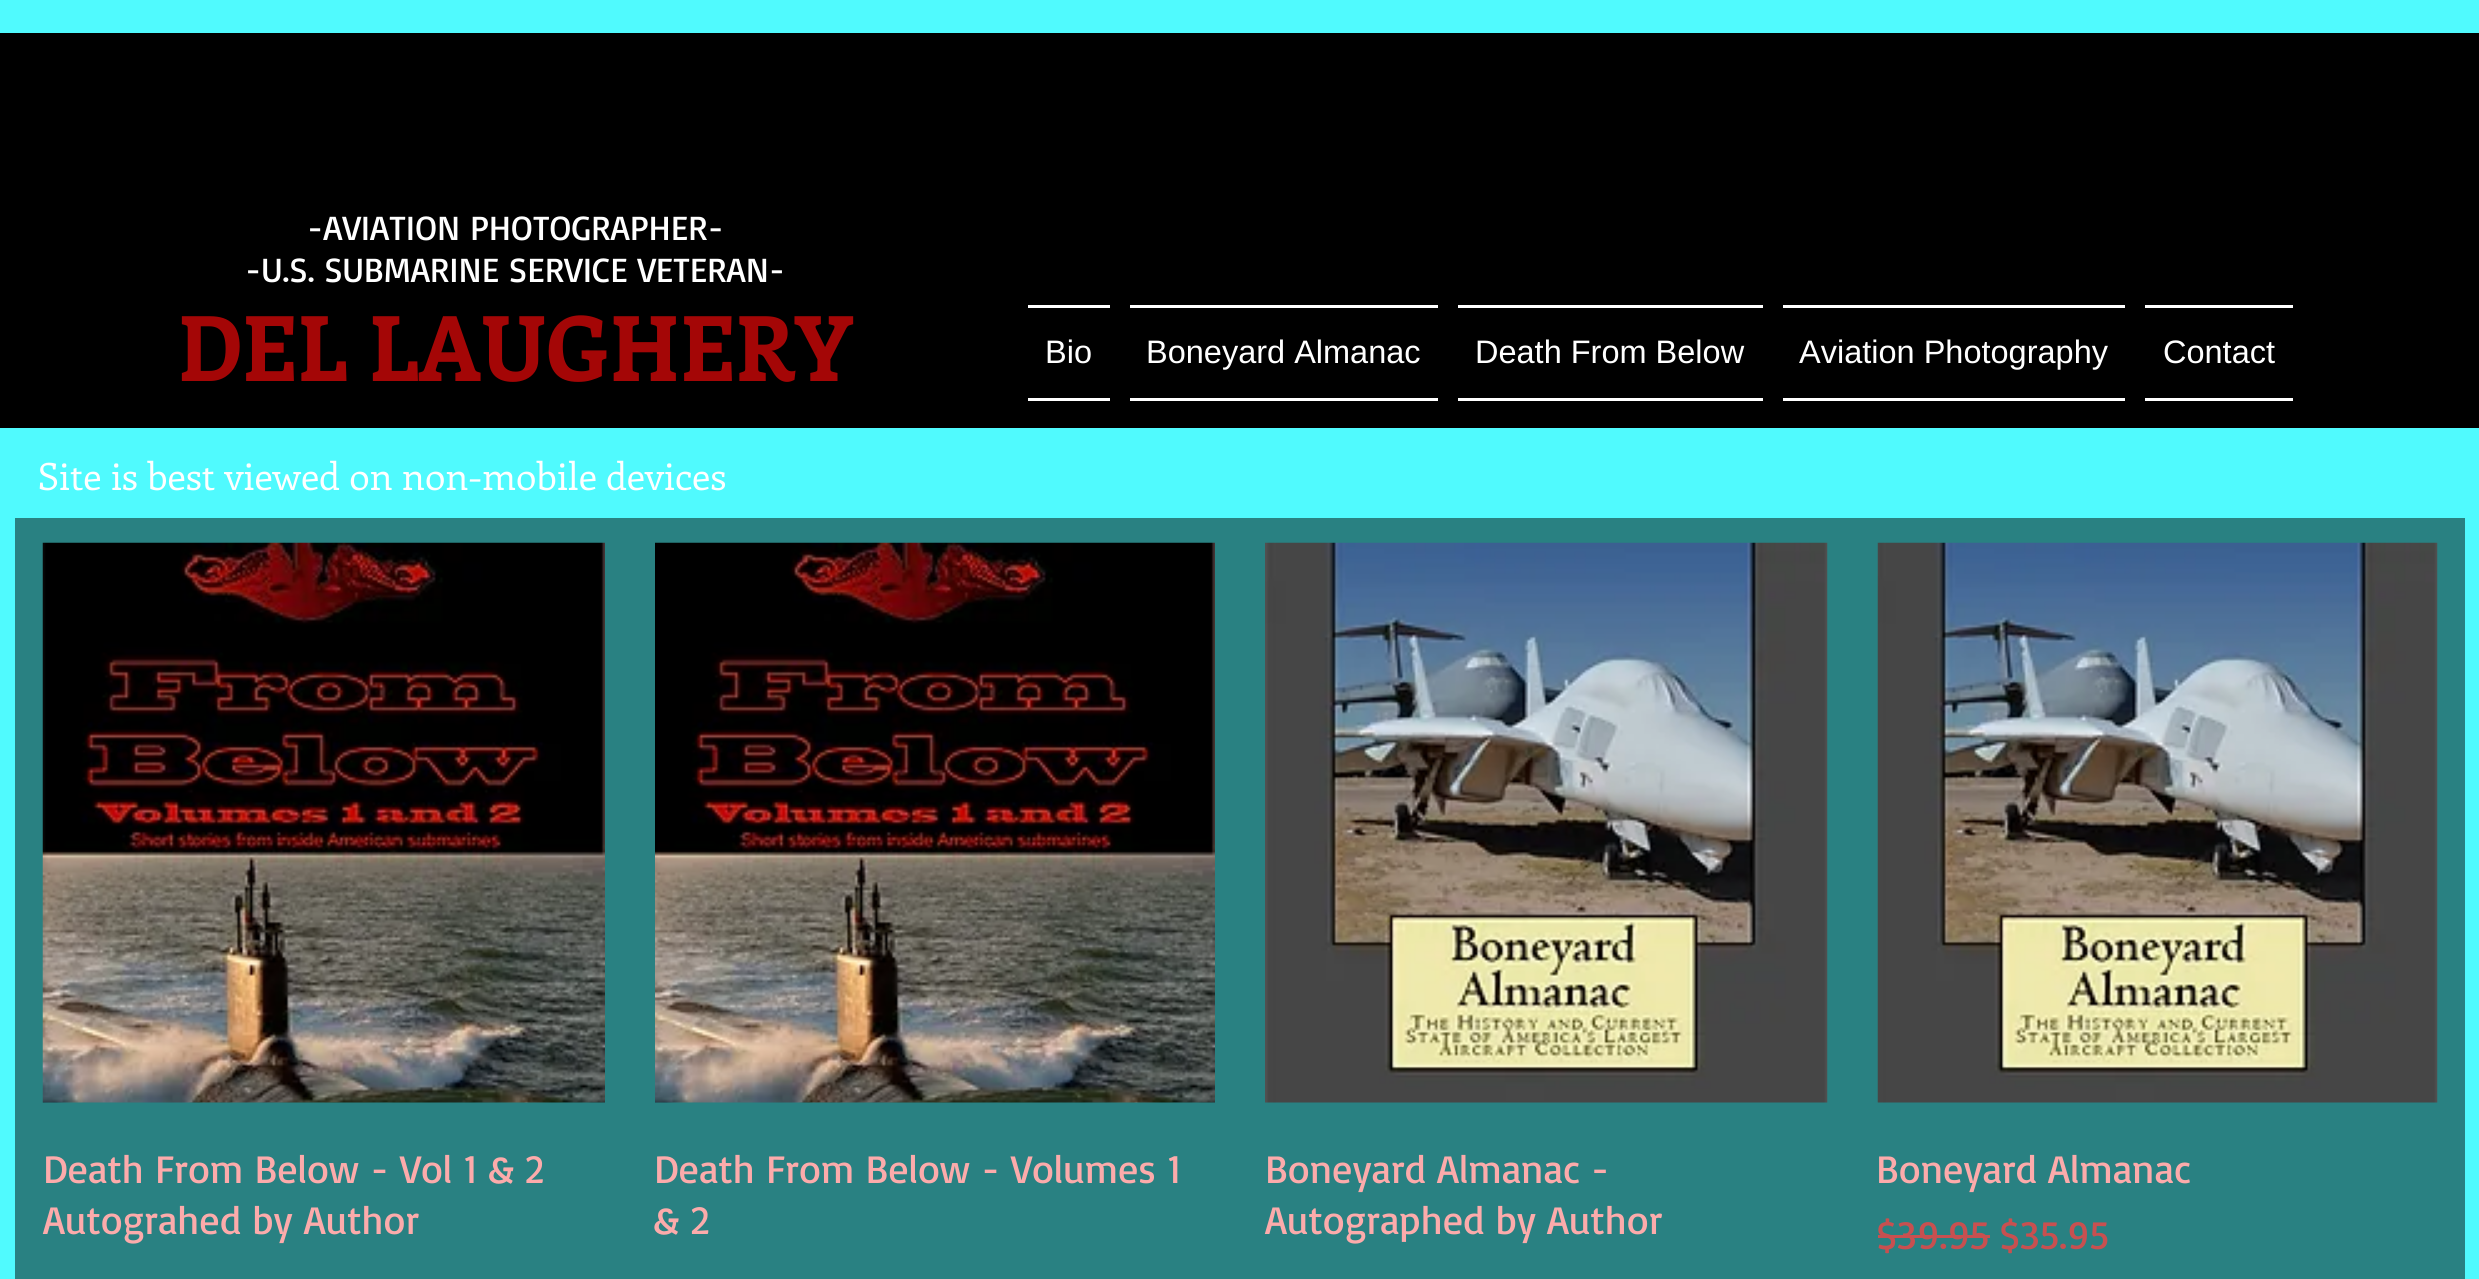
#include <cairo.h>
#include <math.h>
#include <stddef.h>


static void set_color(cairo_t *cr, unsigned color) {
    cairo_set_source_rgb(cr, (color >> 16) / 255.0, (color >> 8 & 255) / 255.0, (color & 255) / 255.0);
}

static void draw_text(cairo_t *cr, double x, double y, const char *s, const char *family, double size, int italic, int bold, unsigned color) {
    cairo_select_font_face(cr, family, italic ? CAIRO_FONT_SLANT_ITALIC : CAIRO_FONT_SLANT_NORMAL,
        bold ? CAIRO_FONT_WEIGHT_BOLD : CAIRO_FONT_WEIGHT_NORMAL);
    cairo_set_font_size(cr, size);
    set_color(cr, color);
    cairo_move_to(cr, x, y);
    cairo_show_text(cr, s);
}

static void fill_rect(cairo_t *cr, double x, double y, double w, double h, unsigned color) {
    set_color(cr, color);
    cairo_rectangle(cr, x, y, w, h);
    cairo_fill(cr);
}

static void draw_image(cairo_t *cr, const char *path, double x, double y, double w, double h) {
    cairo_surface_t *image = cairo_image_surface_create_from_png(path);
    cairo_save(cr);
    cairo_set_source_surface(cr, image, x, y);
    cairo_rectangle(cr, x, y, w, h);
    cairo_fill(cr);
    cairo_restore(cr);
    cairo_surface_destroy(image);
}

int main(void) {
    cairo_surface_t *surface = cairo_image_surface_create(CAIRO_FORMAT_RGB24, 2479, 1279);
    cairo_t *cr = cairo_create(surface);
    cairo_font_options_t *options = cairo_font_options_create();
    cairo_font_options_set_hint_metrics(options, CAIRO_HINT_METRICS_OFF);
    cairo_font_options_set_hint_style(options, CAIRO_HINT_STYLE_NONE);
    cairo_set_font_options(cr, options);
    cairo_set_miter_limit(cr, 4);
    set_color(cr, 0x50FAFE);
    cairo_paint(cr);
    fill_rect(cr, 0, 33, 2479, 395, 0x000000);
    draw_text(cr, 307, 240, "-AVIATION PHOTOGRAPHER-", "Basic", 35, 0, 0, 0xFFFFFF);
    draw_text(cr, 245, 282, "-U.S. SUBMARINE SERVICE VETERAN-", "Basic", 35, 0, 0, 0xFFFFFF);
    draw_text(cr, 178, 381, "DEL LAUGHERY", "Enriqueta", 90, 0, 1, 0xA40606);
    fill_rect(cr, 1028, 305, 82, 3, 0xFFFFFF);
    fill_rect(cr, 1028, 398, 82, 3, 0xFFFFFF);
    draw_text(cr, 1045, 363, "Bio", "Liberation Sans", 32.5, 0, 0, 0xFFFFFF);
    fill_rect(cr, 1130, 305, 308, 3, 0xFFFFFF);
    fill_rect(cr, 1130, 398, 308, 3, 0xFFFFFF);
    draw_text(cr, 1146, 363, "Boneyard Almanac", "Liberation Sans", 32.5, 0, 0, 0xFFFFFF);
    fill_rect(cr, 1458, 305, 305, 3, 0xFFFFFF);
    fill_rect(cr, 1458, 398, 305, 3, 0xFFFFFF);
    draw_text(cr, 1475, 363, "Death From Below", "Liberation Sans", 32.5, 0, 0, 0xFFFFFF);
    fill_rect(cr, 1783, 305, 342, 3, 0xFFFFFF);
    fill_rect(cr, 1783, 398, 342, 3, 0xFFFFFF);
    draw_text(cr, 1799, 363, "Aviation Photography", "Liberation Sans", 32.5, 0, 0, 0xFFFFFF);
    fill_rect(cr, 2145, 305, 148, 3, 0xFFFFFF);
    fill_rect(cr, 2145, 398, 148, 3, 0xFFFFFF);
    draw_text(cr, 2163, 363, "Contact", "Liberation Sans", 32.5, 0, 0, 0xFFFFFF);
    draw_text(cr, 38, 490, "Site is best viewed on non-mobile devices", "Enriqueta", 37.5, 0, 0, 0xFFFFFF);
    fill_rect(cr, 15, 518, 2450, 761, 0x298182);
    draw_image(cr, "assets/img1.png", 42, 542, 563, 561);
    draw_text(cr, 43, 1183, "Death From Below - Vol 1 & 2", "Basic", 40, 0, 0, 0xFCABAB);
    draw_text(cr, 43, 1234, "Autograhed by Author", "Basic", 40, 0, 0, 0xFCABAB);
    draw_image(cr, "assets/img2.png", 655, 542, 560, 561);
    draw_text(cr, 654, 1183, "Death From Below - Volumes 1", "Basic", 40, 0, 0, 0xFCABAB);
    draw_text(cr, 654, 1234, "& 2", "Basic", 40, 0, 0, 0xFCABAB);
    draw_image(cr, "assets/img3.png", 1265, 542, 563, 561);
    draw_text(cr, 1265, 1183, "Boneyard Almanac -", "Basic", 40, 0, 0, 0xFCABAB);
    draw_text(cr, 1265, 1234, "Autographed by Author", "Basic", 40, 0, 0, 0xFCABAB);
    draw_image(cr, "assets/img4.png", 1877, 542, 561, 561);
    draw_text(cr, 1876, 1183, "Boneyard Almanac", "Basic", 40, 0, 0, 0xFCABAB);
    draw_text(cr, 1876, 1249, "$39.95", "Basic", 40, 0, 0, 0xC85050);
    fill_rect(cr, 1878, 1235, 112, 3, 0xC85050);
    draw_text(cr, 1999, 1249, "$35.95", "Basic", 40, 0, 0, 0xC85050);
    cairo_surface_write_to_png(surface, "output.png");
    cairo_font_options_destroy(options);
    cairo_destroy(cr);
    cairo_surface_destroy(surface);
    return 0;
}
